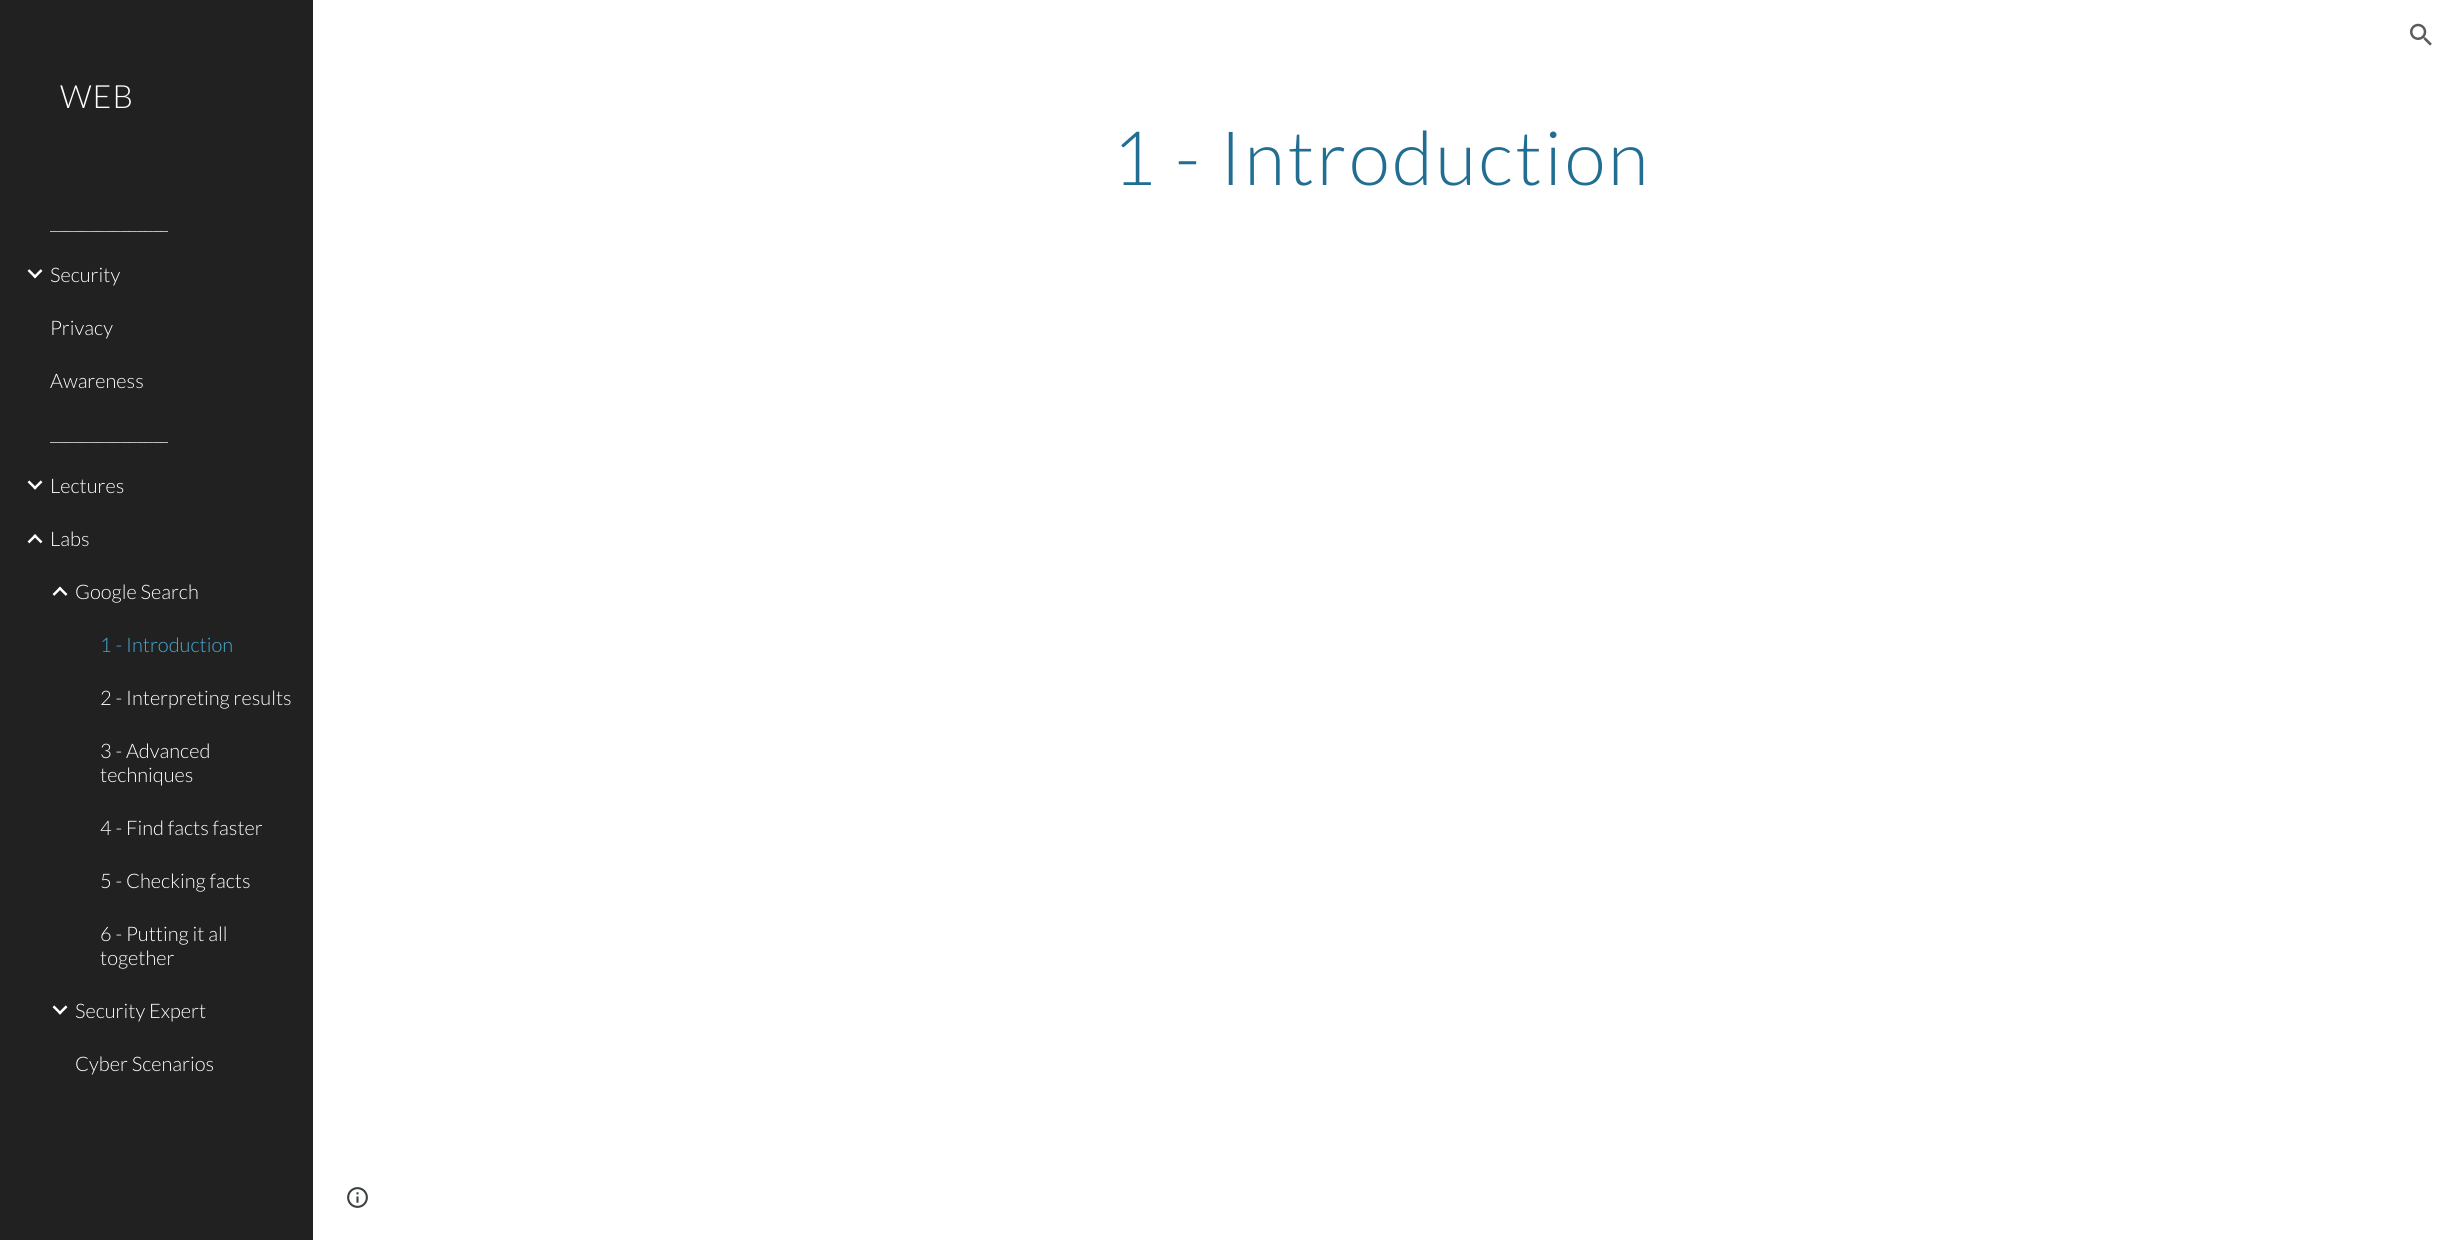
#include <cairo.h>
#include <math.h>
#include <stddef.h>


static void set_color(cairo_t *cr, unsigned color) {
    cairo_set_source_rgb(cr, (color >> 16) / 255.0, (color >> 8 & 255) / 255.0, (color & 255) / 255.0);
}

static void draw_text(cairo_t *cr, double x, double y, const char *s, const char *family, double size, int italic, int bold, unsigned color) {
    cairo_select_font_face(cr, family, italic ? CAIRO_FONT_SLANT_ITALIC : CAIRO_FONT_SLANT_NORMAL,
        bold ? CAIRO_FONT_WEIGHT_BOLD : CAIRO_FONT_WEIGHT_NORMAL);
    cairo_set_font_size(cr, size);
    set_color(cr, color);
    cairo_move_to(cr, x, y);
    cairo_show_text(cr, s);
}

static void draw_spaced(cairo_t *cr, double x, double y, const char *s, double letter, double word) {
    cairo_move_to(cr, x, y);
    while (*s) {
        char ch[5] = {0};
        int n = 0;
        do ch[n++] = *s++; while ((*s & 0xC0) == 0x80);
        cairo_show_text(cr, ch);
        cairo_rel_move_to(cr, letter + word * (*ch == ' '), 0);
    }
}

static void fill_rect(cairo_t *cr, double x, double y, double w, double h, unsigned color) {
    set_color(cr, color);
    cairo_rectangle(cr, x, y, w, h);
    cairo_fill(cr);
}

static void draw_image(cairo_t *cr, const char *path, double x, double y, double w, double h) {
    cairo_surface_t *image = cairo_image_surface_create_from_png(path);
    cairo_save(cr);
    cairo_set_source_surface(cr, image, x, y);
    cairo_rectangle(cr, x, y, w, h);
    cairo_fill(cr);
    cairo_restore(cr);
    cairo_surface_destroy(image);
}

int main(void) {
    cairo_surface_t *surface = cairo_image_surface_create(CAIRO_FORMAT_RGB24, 2451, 1240);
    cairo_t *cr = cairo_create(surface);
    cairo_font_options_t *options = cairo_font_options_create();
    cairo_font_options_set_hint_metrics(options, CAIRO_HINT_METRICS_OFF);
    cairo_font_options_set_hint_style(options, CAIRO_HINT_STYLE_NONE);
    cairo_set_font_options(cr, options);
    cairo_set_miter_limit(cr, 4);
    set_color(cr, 0xFFFFFF);
    cairo_paint(cr);
    draw_image(cr, "assets/img1.png", 2410, 23, 22, 23);
    fill_rect(cr, 0, 0, 313, 1240, 0x212121);
    cairo_select_font_face(cr, "Lato Light", CAIRO_FONT_SLANT_NORMAL, CAIRO_FONT_WEIGHT_NORMAL);
    cairo_set_font_size(cr, 32);
    set_color(cr, 0xFFFFFF);
    draw_spaced(cr, 60, 108, "WEB", 1, 0);
    draw_text(cr, 50, 229, "_______________", "Lato Light", 20, 0, 0, 0xFFFFFF);
    draw_image(cr, "assets/img2.png", 27, 269, 16, 10);
    draw_text(cr, 50, 282, "Security", "Lato Light", 20, 0, 0, 0xFFFFFF);
    draw_text(cr, 50, 335, "Privacy", "Lato Light", 20, 0, 0, 0xFFFFFF);
    draw_text(cr, 50, 388, "Awareness", "Lato Light", 20, 0, 0, 0xFFFFFF);
    draw_text(cr, 50, 440, "_______________", "Lato Light", 20, 0, 0, 0xFFFFFF);
    draw_image(cr, "assets/img3.png", 27, 480, 16, 10);
    draw_text(cr, 50, 493, "Lectures", "Lato Light", 20, 0, 0, 0xFFFFFF);
    draw_image(cr, "assets/img4.png", 27, 534, 16, 10);
    draw_text(cr, 50, 546, "Labs", "Lato Light", 20, 0, 0, 0xFFFFFF);
    draw_image(cr, "assets/img5.png", 52, 586, 16, 10);
    draw_text(cr, 75, 599, "Google Search", "Lato Light", 20, 0, 0, 0xFFFFFF);
    draw_text(cr, 100, 652, "1 - Introduction", "Lato Light", 20, 0, 0, 0x49AAD4);
    draw_text(cr, 100, 705, "2 - Interpreting results", "Lato Light", 20, 0, 0, 0xFFFFFF);
    draw_text(cr, 100, 758, "3 - Advanced", "Lato Light", 20, 0, 0, 0xFFFFFF);
    draw_text(cr, 100, 782, "techniques", "Lato Light", 20, 0, 0, 0xFFFFFF);
    draw_text(cr, 100, 835, "4 - Find facts faster", "Lato Light", 20, 0, 0, 0xFFFFFF);
    draw_text(cr, 100, 888, "5 - Checking facts", "Lato Light", 20, 0, 0, 0xFFFFFF);
    draw_text(cr, 100, 941, "6 - Putting it all", "Lato Light", 20, 0, 0, 0xFFFFFF);
    draw_text(cr, 100, 965, "together", "Lato Light", 20, 0, 0, 0xFFFFFF);
    draw_image(cr, "assets/img3.png", 52, 1005, 16, 10);
    draw_text(cr, 75, 1018, "Security Expert", "Lato Light", 20, 0, 0, 0xFFFFFF);
    draw_text(cr, 75, 1071, "Cyber Scenarios", "Lato Light", 20, 0, 0, 0xFFFFFF);
    cairo_set_font_size(cr, 75);
    set_color(cr, 0x226E93);
    draw_spaced(cr, 1112, 185, "1 - Introduction", 2.5, 0);
    draw_image(cr, "assets/img6.png", 347, 1187, 21, 21);
    cairo_surface_write_to_png(surface, "output.png");
    cairo_font_options_destroy(options);
    cairo_destroy(cr);
    cairo_surface_destroy(surface);
    return 0;
}
